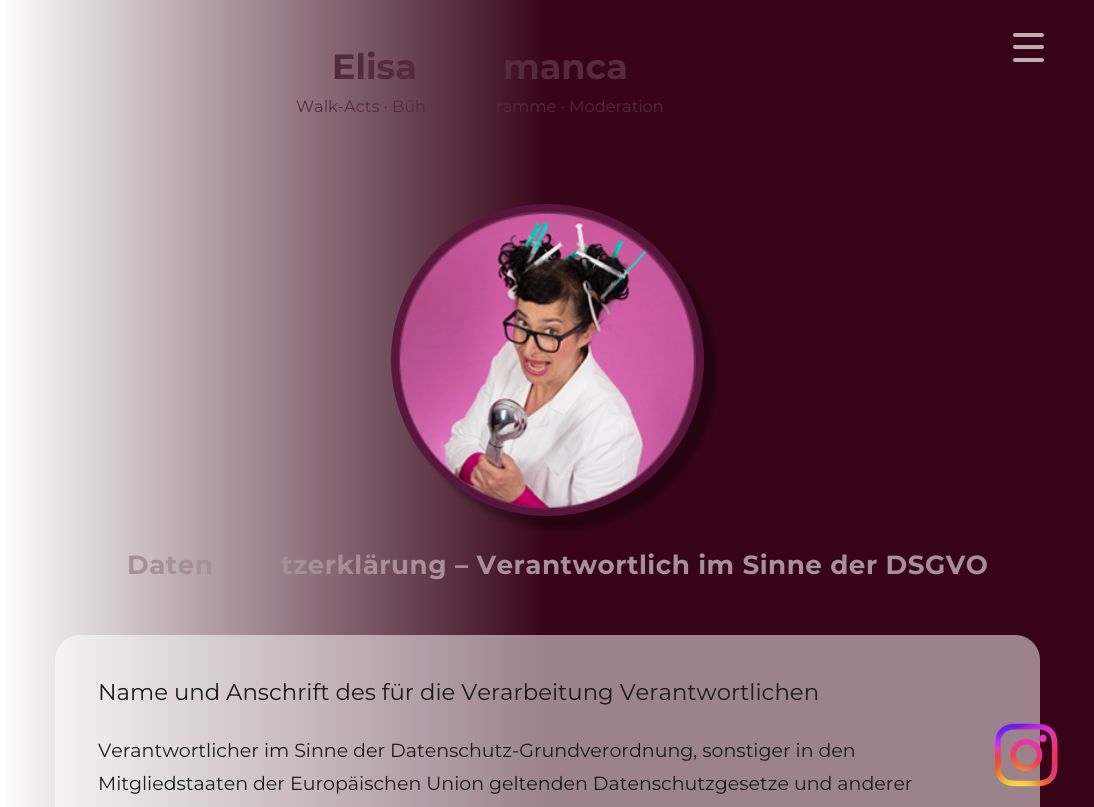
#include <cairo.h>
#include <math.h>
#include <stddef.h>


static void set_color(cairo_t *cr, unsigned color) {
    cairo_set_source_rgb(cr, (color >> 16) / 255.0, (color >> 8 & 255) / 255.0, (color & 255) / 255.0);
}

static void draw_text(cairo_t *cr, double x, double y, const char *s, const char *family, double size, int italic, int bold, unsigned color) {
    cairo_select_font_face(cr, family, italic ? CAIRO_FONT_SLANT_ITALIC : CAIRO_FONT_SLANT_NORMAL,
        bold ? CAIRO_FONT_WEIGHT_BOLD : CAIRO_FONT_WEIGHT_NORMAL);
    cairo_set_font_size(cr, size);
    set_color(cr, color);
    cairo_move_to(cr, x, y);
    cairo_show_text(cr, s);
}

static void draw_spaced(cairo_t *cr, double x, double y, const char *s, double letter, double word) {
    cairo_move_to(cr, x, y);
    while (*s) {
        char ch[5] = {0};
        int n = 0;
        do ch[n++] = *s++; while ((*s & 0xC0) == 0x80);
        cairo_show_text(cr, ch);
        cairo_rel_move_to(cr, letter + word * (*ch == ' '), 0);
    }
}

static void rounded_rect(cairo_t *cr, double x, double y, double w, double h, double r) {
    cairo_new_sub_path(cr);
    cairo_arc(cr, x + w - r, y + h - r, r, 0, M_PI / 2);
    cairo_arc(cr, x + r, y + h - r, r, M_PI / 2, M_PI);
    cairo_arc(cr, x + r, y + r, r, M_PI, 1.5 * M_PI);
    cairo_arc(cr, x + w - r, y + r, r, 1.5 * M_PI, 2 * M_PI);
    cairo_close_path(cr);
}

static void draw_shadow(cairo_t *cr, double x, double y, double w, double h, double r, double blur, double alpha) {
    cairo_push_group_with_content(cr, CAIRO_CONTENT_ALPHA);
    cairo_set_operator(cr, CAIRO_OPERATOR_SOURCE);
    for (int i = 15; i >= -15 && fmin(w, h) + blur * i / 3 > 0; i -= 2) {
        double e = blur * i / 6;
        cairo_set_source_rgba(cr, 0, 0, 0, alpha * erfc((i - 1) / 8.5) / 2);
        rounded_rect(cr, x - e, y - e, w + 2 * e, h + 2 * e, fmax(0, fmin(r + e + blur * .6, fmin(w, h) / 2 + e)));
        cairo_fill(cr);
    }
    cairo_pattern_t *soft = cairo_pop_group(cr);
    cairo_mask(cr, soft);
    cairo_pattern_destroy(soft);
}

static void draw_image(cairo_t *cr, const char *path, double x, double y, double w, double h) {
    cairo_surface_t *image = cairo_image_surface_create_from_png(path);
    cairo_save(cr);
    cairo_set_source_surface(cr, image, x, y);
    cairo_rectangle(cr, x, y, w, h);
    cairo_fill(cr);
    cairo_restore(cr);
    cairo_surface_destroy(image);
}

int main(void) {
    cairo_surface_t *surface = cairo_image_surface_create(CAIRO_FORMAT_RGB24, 1094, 807);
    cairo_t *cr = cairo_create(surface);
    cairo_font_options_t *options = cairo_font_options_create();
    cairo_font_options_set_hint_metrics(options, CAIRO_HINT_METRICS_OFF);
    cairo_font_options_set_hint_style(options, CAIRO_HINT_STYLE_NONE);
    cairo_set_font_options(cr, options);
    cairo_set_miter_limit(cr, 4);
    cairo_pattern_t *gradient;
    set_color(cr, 0xFFFFFF);
    cairo_paint(cr);
    gradient = cairo_pattern_create_linear(0, 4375, 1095, 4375);
    cairo_pattern_add_color_stop_rgba(gradient, 0, 1, 1, 1, 1);
    cairo_pattern_add_color_stop_rgba(gradient, 0.5, 0.216, 0.016, 0.09, 1);
    cairo_set_source(cr, gradient);
    cairo_pattern_destroy(gradient);
    cairo_rectangle(cr, 5, 0, 1089, 807);
    cairo_fill(cr);
    set_color(cr, 0xC0ABB0);
    rounded_rect(cr, 1013, 45, 31, 4, 2);
    cairo_fill(cr);
    rounded_rect(cr, 1013, 33, 31, 4, 2);
    cairo_fill(cr);
    rounded_rect(cr, 1013, 58, 31, 4, 2);
    cairo_fill(cr);
    draw_text(cr, 332, 79, "Elisa", "Montserrat Thin", 35, 0, 0, 0x552A3A);
    draw_text(cr, 503, 79, "manca", "Montserrat Thin", 35, 0, 0, 0x552A3A);
    draw_text(cr, 296, 112, "Walk-Acts · Büh", "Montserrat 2 Thin", 16.25, 0, 0, 0x552A3A);
    draw_text(cr, 496, 112, "ramme · Moderation", "Montserrat 2 Thin", 16.25, 0, 0, 0x552A3A);
    set_color(cr, 0x000000);
    draw_shadow(cr, 404, 216, 312, 313, 156, 3, 0.33);
    rounded_rect(cr, 395, 208, 305, 304, 152);
    set_color(cr, 0x58163A);
    cairo_set_line_width(cr, 8);
    cairo_stroke(cr);
    draw_image(cr, "assets/img1.png", 399, 211, 297, 298);
    cairo_select_font_face(cr, "Montserrat Thin", CAIRO_FONT_SLANT_NORMAL, CAIRO_FONT_WEIGHT_NORMAL);
    cairo_set_font_size(cr, 26.2);
    set_color(cr, 0xA78F98);
    draw_spaced(cr, 127, 574, "Daten", 0.5, 0);
    draw_spaced(cr, 281, 574, "tzerklärung – Verantwortlich im Sinne der DSGVO", 0.5, 0);
    cairo_set_source_rgba(cr, 1, 1, 1, 0.5);
    rounded_rect(cr, 55, 635, 985, 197, 25);
    cairo_fill(cr);
    draw_text(cr, 98, 700, "Name und Anschrift des für die Verarbeitung Verantwortlichen", "Montserrat 2 Thin", 22.8, 0, 0, 0x1A1A1A);
    draw_text(cr, 98, 757, "Verantwortlicher im Sinne der Datenschutz-Grundverordnung, sonstiger in den", "Montserrat 2 Thin", 19, 0, 0, 0x1A1A1A);
    draw_text(cr, 98, 790, "Mitgliedstaaten der Europäischen Union geltenden Datenschutzgesetze und anderer", "Montserrat 2 Thin", 19, 0, 0, 0x1A1A1A);
    draw_image(cr, "assets/img2.png", 995, 723, 63, 64);
    cairo_surface_write_to_png(surface, "output.png");
    cairo_font_options_destroy(options);
    cairo_destroy(cr);
    cairo_surface_destroy(surface);
    return 0;
}
